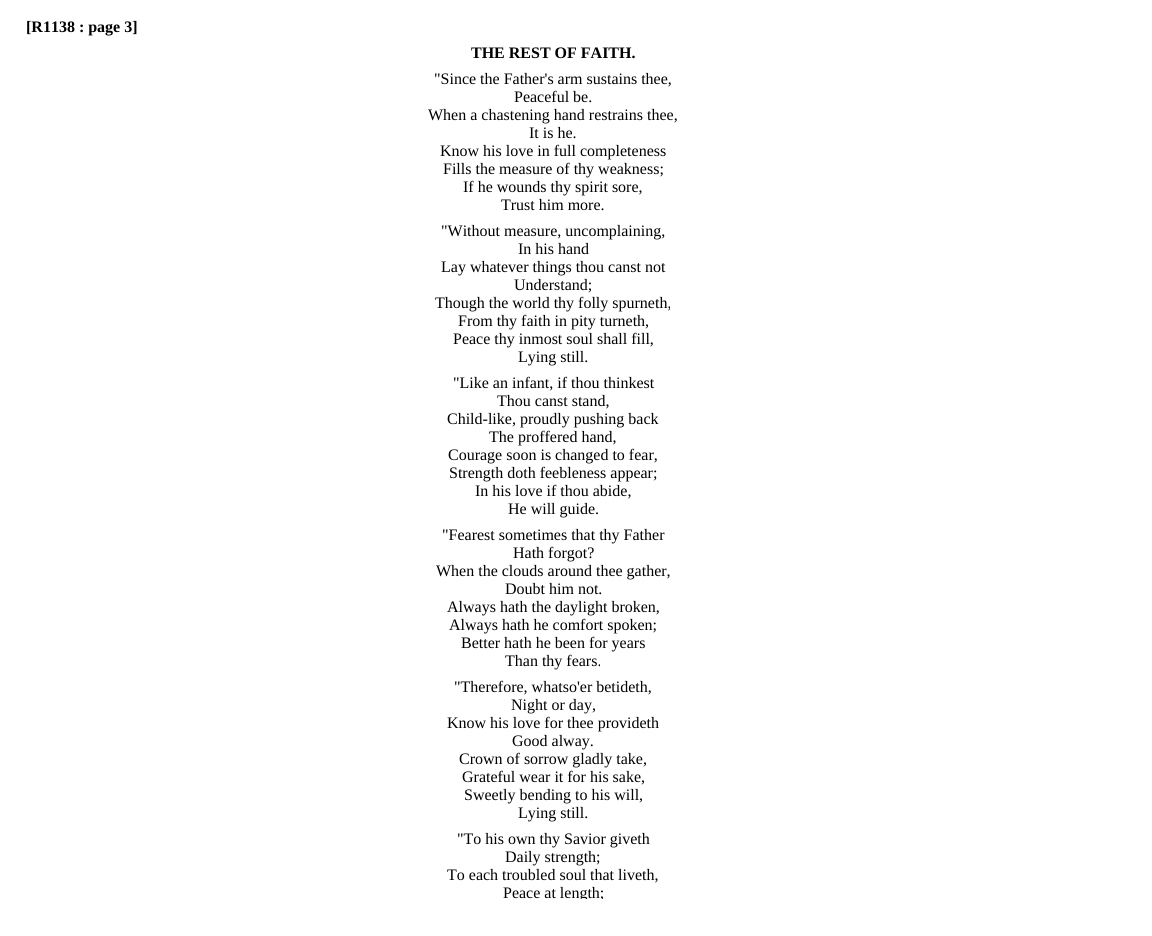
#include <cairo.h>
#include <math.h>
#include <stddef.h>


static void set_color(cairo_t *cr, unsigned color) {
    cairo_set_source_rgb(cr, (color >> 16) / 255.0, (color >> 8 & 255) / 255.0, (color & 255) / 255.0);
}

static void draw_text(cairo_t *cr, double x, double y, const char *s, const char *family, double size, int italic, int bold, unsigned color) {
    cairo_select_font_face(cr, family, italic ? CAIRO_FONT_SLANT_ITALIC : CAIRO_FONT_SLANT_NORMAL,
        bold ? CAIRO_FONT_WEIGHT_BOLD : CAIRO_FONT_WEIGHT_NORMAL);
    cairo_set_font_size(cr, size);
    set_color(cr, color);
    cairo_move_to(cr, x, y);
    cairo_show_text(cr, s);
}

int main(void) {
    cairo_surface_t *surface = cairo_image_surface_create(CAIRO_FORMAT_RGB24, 1152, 936);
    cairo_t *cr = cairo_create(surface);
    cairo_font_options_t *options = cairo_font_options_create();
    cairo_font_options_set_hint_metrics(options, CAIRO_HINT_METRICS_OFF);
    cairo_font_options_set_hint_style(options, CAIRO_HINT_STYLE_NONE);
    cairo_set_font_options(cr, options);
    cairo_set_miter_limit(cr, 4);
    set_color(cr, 0xFFFFFF);
    cairo_paint(cr);
    draw_text(cr, 26, 32, "[R1138 : page 3]", "Liberation Serif", 16, 0, 1, 0x000000);
    draw_text(cr, 471, 58, "THE REST OF FAITH.", "Liberation Serif", 16, 0, 1, 0x000000);
    draw_text(cr, 434, 84, "\"Since the Father's arm sustains thee,", "Liberation Serif", 16, 0, 0, 0x000000);
    draw_text(cr, 514, 102, "Peaceful be.", "Liberation Serif", 16, 0, 0, 0x000000);
    draw_text(cr, 428, 120, "When a chastening hand restrains thee,", "Liberation Serif", 16, 0, 0, 0x000000);
    draw_text(cr, 529, 138, "It is he.", "Liberation Serif", 16, 0, 0, 0x000000);
    draw_text(cr, 440, 156, "Know his love in full completeness", "Liberation Serif", 16, 0, 0, 0x000000);
    draw_text(cr, 443, 174, "Fills the measure of thy weakness;", "Liberation Serif", 16, 0, 0, 0x000000);
    draw_text(cr, 463, 192, "If he wounds thy spirit sore,", "Liberation Serif", 16, 0, 0, 0x000000);
    draw_text(cr, 501, 210, "Trust him more.", "Liberation Serif", 16, 0, 0, 0x000000);
    draw_text(cr, 441, 236, "\"Without measure, uncomplaining,", "Liberation Serif", 16, 0, 0, 0x000000);
    draw_text(cr, 518, 254, "In his hand", "Liberation Serif", 16, 0, 0, 0x000000);
    draw_text(cr, 441, 272, "Lay whatever things thou canst not", "Liberation Serif", 16, 0, 0, 0x000000);
    draw_text(cr, 514, 290, "Understand;", "Liberation Serif", 16, 0, 0, 0x000000);
    draw_text(cr, 435, 308, "Though the world thy folly spurneth,", "Liberation Serif", 16, 0, 0, 0x000000);
    draw_text(cr, 458, 326, "From thy faith in pity turneth,", "Liberation Serif", 16, 0, 0, 0x000000);
    draw_text(cr, 453, 344, "Peace thy inmost soul shall fill,", "Liberation Serif", 16, 0, 0, 0x000000);
    draw_text(cr, 518, 362, "Lying still.", "Liberation Serif", 16, 0, 0, 0x000000);
    draw_text(cr, 453, 388, "\"Like an infant, if thou thinkest", "Liberation Serif", 16, 0, 0, 0x000000);
    draw_text(cr, 497, 406, "Thou canst stand,", "Liberation Serif", 16, 0, 0, 0x000000);
    draw_text(cr, 447, 424, "Child-like, proudly pushing back", "Liberation Serif", 16, 0, 0, 0x000000);
    draw_text(cr, 489, 442, "The proffered hand,", "Liberation Serif", 16, 0, 0, 0x000000);
    draw_text(cr, 448, 460, "Courage soon is changed to fear,", "Liberation Serif", 16, 0, 0, 0x000000);
    draw_text(cr, 449, 478, "Strength doth feebleness appear;", "Liberation Serif", 16, 0, 0, 0x000000);
    draw_text(cr, 475, 496, "In his love if thou abide,", "Liberation Serif", 16, 0, 0, 0x000000);
    draw_text(cr, 508, 514, "He will guide.", "Liberation Serif", 16, 0, 0, 0x000000);
    draw_text(cr, 442, 540, "\"Fearest sometimes that thy Father", "Liberation Serif", 16, 0, 0, 0x000000);
    draw_text(cr, 513, 558, "Hath forgot?", "Liberation Serif", 16, 0, 0, 0x000000);
    draw_text(cr, 436, 576, "When the clouds around thee gather,", "Liberation Serif", 16, 0, 0, 0x000000);
    draw_text(cr, 505, 594, "Doubt him not.", "Liberation Serif", 16, 0, 0, 0x000000);
    draw_text(cr, 447, 612, "Always hath the daylight broken,", "Liberation Serif", 16, 0, 0, 0x000000);
    draw_text(cr, 449, 630, "Always hath he comfort spoken;", "Liberation Serif", 16, 0, 0, 0x000000);
    draw_text(cr, 461, 648, "Better hath he been for years", "Liberation Serif", 16, 0, 0, 0x000000);
    draw_text(cr, 505, 666, "Than thy fears.", "Liberation Serif", 16, 0, 0, 0x000000);
    draw_text(cr, 454, 692, "\"Therefore, whatso'er betideth,", "Liberation Serif", 16, 0, 0, 0x000000);
    draw_text(cr, 511, 710, "Night or day,", "Liberation Serif", 16, 0, 0, 0x000000);
    draw_text(cr, 447, 728, "Know his love for thee provideth", "Liberation Serif", 16, 0, 0, 0x000000);
    draw_text(cr, 512, 746, "Good alway.", "Liberation Serif", 16, 0, 0, 0x000000);
    draw_text(cr, 459, 764, "Crown of sorrow gladly take,", "Liberation Serif", 16, 0, 0, 0x000000);
    draw_text(cr, 462, 782, "Grateful wear it for his sake,", "Liberation Serif", 16, 0, 0, 0x000000);
    draw_text(cr, 464, 800, "Sweetly bending to his will,", "Liberation Serif", 16, 0, 0, 0x000000);
    draw_text(cr, 518, 818, "Lying still.", "Liberation Serif", 16, 0, 0, 0x000000);
    draw_text(cr, 457, 844, "\"To his own thy Savior giveth", "Liberation Serif", 16, 0, 0, 0x000000);
    draw_text(cr, 505, 862, "Daily strength;", "Liberation Serif", 16, 0, 0, 0x000000);
    draw_text(cr, 447, 880, "To each troubled soul that liveth,", "Liberation Serif", 16, 0, 0, 0x000000);
    cairo_save(cr);
    cairo_rectangle(cr, 10, 10, 1094, 889);
    cairo_clip(cr);
    draw_text(cr, 503, 898, "Peace at length;", "Liberation Serif", 16, 0, 0, 0x000000);
    cairo_restore(cr);
    cairo_surface_write_to_png(surface, "output.png");
    cairo_font_options_destroy(options);
    cairo_destroy(cr);
    cairo_surface_destroy(surface);
    return 0;
}
